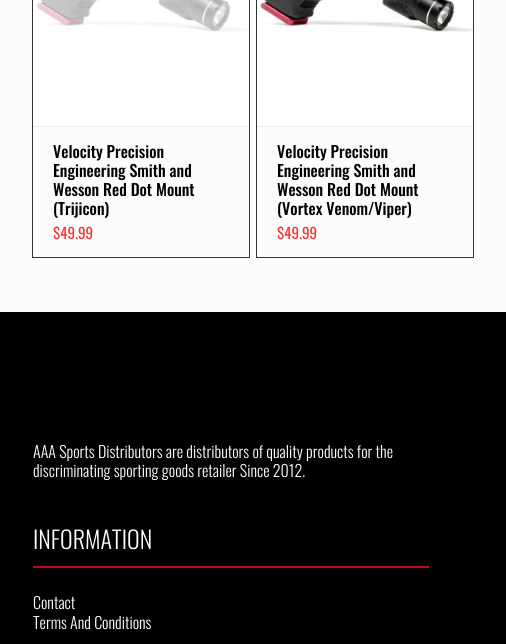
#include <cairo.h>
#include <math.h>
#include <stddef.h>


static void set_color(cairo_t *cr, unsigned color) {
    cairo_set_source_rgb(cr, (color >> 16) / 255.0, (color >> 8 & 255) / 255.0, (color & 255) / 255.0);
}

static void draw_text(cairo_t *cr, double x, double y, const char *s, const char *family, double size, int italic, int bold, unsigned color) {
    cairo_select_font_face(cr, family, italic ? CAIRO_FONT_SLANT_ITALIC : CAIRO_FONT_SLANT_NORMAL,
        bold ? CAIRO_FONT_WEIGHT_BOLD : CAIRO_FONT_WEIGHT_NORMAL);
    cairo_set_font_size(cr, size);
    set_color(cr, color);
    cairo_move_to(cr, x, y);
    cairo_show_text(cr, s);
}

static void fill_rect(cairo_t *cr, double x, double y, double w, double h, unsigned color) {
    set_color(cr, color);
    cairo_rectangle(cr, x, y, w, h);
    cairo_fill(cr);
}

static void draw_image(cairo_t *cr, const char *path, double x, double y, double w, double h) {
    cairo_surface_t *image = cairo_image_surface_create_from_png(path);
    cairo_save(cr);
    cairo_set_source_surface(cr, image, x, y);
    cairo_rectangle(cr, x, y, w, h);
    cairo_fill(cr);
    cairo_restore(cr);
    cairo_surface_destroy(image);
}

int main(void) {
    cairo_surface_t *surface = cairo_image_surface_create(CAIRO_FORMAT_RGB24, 506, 644);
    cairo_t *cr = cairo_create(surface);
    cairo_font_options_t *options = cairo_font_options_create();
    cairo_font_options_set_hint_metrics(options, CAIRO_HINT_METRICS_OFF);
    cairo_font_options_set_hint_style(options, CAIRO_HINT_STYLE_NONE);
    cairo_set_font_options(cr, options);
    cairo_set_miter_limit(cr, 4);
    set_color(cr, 0xFCFCFC);
    cairo_paint(cr);
    cairo_rectangle(cr, 32.5, -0.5, 217, 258);
    set_color(cr, 0x333333);
    cairo_set_line_width(cr, 1);
    cairo_stroke(cr);
    fill_rect(cr, 33, 0, 216, 126, 0xFFFFFF);
    draw_image(cr, "assets/img1.png", 36, 0, 213, 32);
    fill_rect(cr, 33, 126, 216, 1, 0xEEEEEE);
    draw_text(cr, 53, 158, "Velocity Precision", "Oswald Medium", 16, 0, 0, 0x000000);
    draw_text(cr, 53, 177, "Engineering Smith and", "Oswald Medium", 16, 0, 0, 0x000000);
    draw_text(cr, 53, 196, "Wesson Red Dot Mount", "Oswald Medium", 16, 0, 0, 0x000000);
    draw_text(cr, 53, 215, "(Trijicon)", "Oswald Medium", 16, 0, 0, 0x000000);
    draw_text(cr, 53, 239, "$49.99", "Oswald", 15, 0, 0, 0xF83030);
    cairo_rectangle(cr, 256.5, -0.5, 217, 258);
    set_color(cr, 0x333333);
    cairo_stroke(cr);
    fill_rect(cr, 257, 0, 216, 126, 0xFFFFFF);
    draw_image(cr, "assets/img2.png", 260, 0, 213, 32);
    fill_rect(cr, 257, 126, 216, 1, 0xEEEEEE);
    draw_text(cr, 277, 158, "Velocity Precision", "Oswald Medium", 16, 0, 0, 0x000000);
    draw_text(cr, 277, 177, "Engineering Smith and", "Oswald Medium", 16, 0, 0, 0x000000);
    draw_text(cr, 277, 196, "Wesson Red Dot Mount", "Oswald Medium", 16, 0, 0, 0x000000);
    draw_text(cr, 277, 215, "(Vortex Venom/Viper)", "Oswald Medium", 16, 0, 0, 0x000000);
    draw_text(cr, 277, 239, "$49.99", "Oswald", 15, 0, 0, 0xF83030);
    fill_rect(cr, 0, 312, 506, 332, 0x000000);
    draw_text(cr, 33, 458, "AAA Sports Distributors are distributors of quality products for the", "Oswald Light", 16, 0, 0, 0xFFFFFF);
    draw_text(cr, 33, 477, "discriminating sporting goods retailer Since 2012.", "Oswald Light", 16, 0, 0, 0xFFFFFF);
    fill_rect(cr, 33, 566, 396, 2, 0xC6070D);
    draw_text(cr, 33, 549, "INFORMATION", "Oswald Light", 24, 0, 0, 0xFFFFFF);
    draw_text(cr, 33, 609, "Contact", "Oswald Light", 16, 0, 0, 0xFFFFFF);
    draw_text(cr, 33, 629, "Terms And Conditions", "Oswald Light", 16, 0, 0, 0xFFFFFF);
    cairo_surface_write_to_png(surface, "output.png");
    cairo_font_options_destroy(options);
    cairo_destroy(cr);
    cairo_surface_destroy(surface);
    return 0;
}
